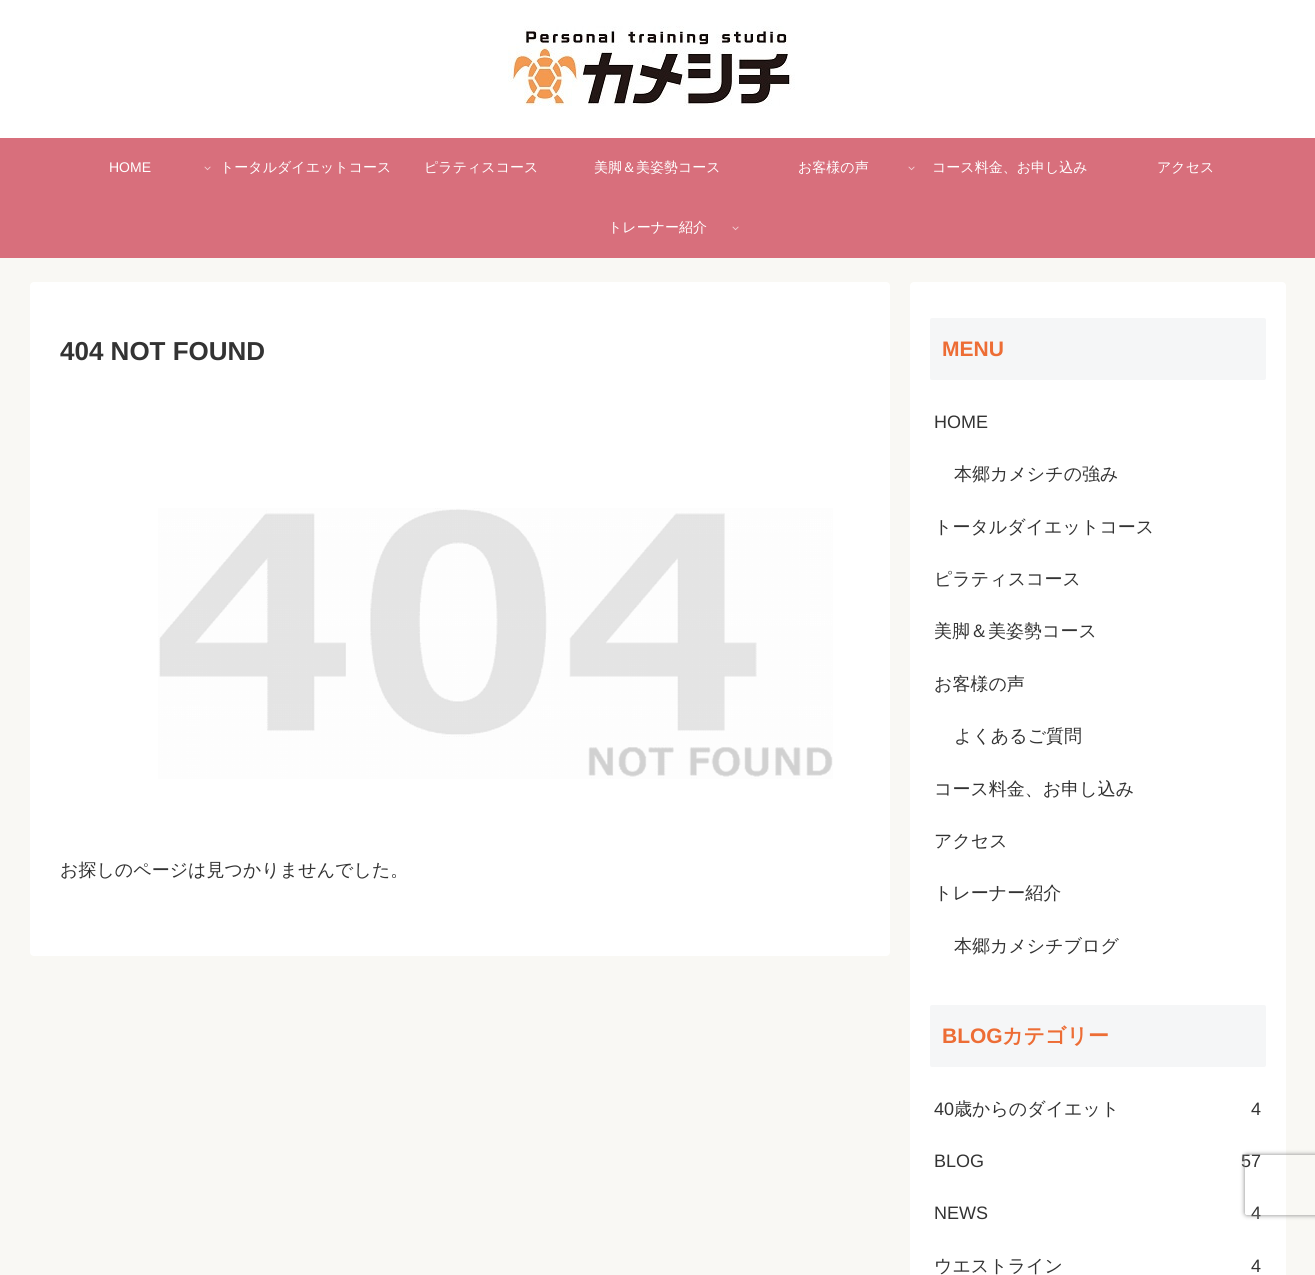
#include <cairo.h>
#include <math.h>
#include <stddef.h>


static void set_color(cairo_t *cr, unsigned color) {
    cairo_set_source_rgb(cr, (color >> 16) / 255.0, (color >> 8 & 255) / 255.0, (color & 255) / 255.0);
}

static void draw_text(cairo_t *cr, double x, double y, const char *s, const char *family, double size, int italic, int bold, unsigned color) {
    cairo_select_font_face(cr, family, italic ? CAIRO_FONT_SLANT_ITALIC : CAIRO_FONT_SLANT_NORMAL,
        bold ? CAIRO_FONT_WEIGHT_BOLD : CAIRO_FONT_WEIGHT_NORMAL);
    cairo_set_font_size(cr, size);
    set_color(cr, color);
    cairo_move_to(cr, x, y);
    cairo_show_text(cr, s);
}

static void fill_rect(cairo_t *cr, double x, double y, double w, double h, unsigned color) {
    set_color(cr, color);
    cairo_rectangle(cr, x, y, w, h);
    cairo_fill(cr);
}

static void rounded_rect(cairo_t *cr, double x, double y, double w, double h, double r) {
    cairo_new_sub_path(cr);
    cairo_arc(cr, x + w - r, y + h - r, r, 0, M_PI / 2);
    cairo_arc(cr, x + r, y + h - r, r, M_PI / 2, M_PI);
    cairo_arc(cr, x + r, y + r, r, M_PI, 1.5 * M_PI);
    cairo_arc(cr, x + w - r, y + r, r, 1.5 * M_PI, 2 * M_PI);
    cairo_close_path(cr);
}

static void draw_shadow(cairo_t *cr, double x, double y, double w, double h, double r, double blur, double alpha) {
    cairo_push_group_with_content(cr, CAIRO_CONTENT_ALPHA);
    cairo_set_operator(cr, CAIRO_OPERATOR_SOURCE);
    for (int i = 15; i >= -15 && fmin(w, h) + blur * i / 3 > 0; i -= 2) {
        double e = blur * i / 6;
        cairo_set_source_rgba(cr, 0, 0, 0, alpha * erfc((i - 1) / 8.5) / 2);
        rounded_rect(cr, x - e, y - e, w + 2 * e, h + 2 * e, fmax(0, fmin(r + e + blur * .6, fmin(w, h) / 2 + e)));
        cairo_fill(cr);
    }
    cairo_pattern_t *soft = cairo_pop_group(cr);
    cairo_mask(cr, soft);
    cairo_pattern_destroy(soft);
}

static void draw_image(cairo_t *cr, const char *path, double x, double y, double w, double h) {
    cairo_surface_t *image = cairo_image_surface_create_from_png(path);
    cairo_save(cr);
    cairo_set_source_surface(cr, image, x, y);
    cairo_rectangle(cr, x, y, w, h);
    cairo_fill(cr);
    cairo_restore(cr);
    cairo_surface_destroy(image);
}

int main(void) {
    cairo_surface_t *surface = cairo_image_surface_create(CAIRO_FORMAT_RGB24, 1315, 1275);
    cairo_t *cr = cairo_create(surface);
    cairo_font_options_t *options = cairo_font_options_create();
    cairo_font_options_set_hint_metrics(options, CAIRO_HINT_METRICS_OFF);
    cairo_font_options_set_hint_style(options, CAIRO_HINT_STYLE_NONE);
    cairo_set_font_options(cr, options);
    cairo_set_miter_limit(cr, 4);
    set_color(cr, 0xF9F8F4);
    cairo_paint(cr);
    fill_rect(cr, 0, 0, 1315, 138, 0xFFFFFF);
    draw_image(cr, "assets/img1.png", 508, 26, 287, 80);
    fill_rect(cr, 0, 138, 1315, 120, 0xD86F7C);
    draw_text(cr, 109, 172, "HOME", "Liberation Sans", 14, 0, 0, 0xFFFFFF);
    draw_image(cr, "assets/img2.png", 204, 166, 7, 5);
    draw_text(cr, 220, 172, "トータルダイエットコース", "WenQuanYi Zen Hei Medium", 14, 0, 0, 0xFFFFFF);
    draw_text(cr, 424, 172, "ピラティスコース", "WenQuanYi Zen Hei Medium", 14, 0, 0, 0xFFFFFF);
    draw_text(cr, 594, 172, "美脚＆美姿勢コース", "WenQuanYi Zen Hei Medium", 14, 0, 0, 0xFFFFFF);
    draw_text(cr, 798, 172, "お客様の声", "WenQuanYi Zen Hei Medium", 14, 0, 0, 0xFFFFFF);
    draw_image(cr, "assets/img2.png", 908, 166, 7, 5);
    draw_text(cr, 932, 172, "コース料金、お申し込み", "WenQuanYi Zen Hei Medium", 14, 0, 0, 0xFFFFFF);
    draw_text(cr, 1157, 172, "アクセス", "WenQuanYi Zen Hei Medium", 14, 0, 0, 0xFFFFFF);
    draw_text(cr, 608, 232, "トレーナー紹介", "WenQuanYi Zen Hei Medium", 14, 0, 0, 0xFFFFFF);
    draw_image(cr, "assets/img2.png", 732, 226, 7, 5);
    rounded_rect(cr, 30, 282, 860, 674, 4);
    cairo_fill(cr);
    draw_text(cr, 60, 360, "404 NOT FOUND", "Liberation Sans", 26, 0, 1, 0x333333);
    draw_image(cr, "assets/img3.png", 158, 508, 675, 271);
    draw_text(cr, 60, 876, "お探しのページは見つかりませんでした。", "WenQuanYi Zen Hei Medium", 18, 0, 0, 0x333333);
    set_color(cr, 0xFFFFFF);
    rounded_rect(cr, 910, 282, 376, 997, 4);
    cairo_fill(cr);
    set_color(cr, 0xF5F6F7);
    rounded_rect(cr, 930, 318, 336, 62, 2);
    cairo_fill(cr);
    draw_text(cr, 942, 356, "MENU", "Liberation Sans", 21, 0, 1, 0xED6D35);
    draw_text(cr, 934, 428, "HOME", "Liberation Sans", 18, 0, 0, 0x333333);
    draw_text(cr, 954, 480, "本郷カメシチの強み", "WenQuanYi Zen Hei Medium", 18, 0, 0, 0x333333);
    draw_text(cr, 934, 533, "トータルダイエットコース", "WenQuanYi Zen Hei Medium", 18, 0, 0, 0x333333);
    draw_text(cr, 934, 585, "ピラティスコース", "WenQuanYi Zen Hei Medium", 18, 0, 0, 0x333333);
    draw_text(cr, 934, 637, "美脚＆美姿勢コース", "WenQuanYi Zen Hei Medium", 18, 0, 0, 0x333333);
    draw_text(cr, 934, 690, "お客様の声", "WenQuanYi Zen Hei Medium", 18, 0, 0, 0x333333);
    draw_text(cr, 954, 742, "よくあるご質問", "WenQuanYi Zen Hei Medium", 18, 0, 0, 0x333333);
    draw_text(cr, 934, 795, "コース料金、お申し込み", "WenQuanYi Zen Hei Medium", 18, 0, 0, 0x333333);
    draw_text(cr, 934, 847, "アクセス", "WenQuanYi Zen Hei Medium", 18, 0, 0, 0x333333);
    draw_text(cr, 934, 899, "トレーナー紹介", "WenQuanYi Zen Hei Medium", 18, 0, 0, 0x333333);
    draw_text(cr, 954, 952, "本郷カメシチブログ", "WenQuanYi Zen Hei Medium", 18, 0, 0, 0x333333);
    set_color(cr, 0xF5F6F7);
    rounded_rect(cr, 930, 1005, 336, 62, 2);
    cairo_fill(cr);
    draw_text(cr, 942, 1043, "BLOG", "Liberation Sans", 21, 0, 1, 0xED6D35);
    draw_text(cr, 1002, 1043, "カテゴリー", "WenQuanYi Zen Hei", 21, 0, 1, 0xED6D35);
    draw_text(cr, 934, 1115, "40", "Liberation Sans", 18, 0, 0, 0x333333);
    draw_text(cr, 954, 1115, "歳からのダイエット", "WenQuanYi Zen Hei Medium", 18, 0, 0, 0x333333);
    draw_text(cr, 1251, 1115, "4", "Liberation Sans", 18, 0, 0, 0x333333);
    draw_text(cr, 934, 1167, "BLOG", "Liberation Sans", 18, 0, 0, 0x333333);
    draw_text(cr, 1241, 1167, "57", "Liberation Sans", 18, 0, 0, 0x333333);
    draw_text(cr, 934, 1219, "NEWS", "Liberation Sans", 18, 0, 0, 0x333333);
    draw_text(cr, 1251, 1219, "4", "Liberation Sans", 18, 0, 0, 0x333333);
    draw_text(cr, 934, 1272, "ウエストライン", "WenQuanYi Zen Hei Medium", 18, 0, 0, 0x333333);
    draw_text(cr, 1251, 1272, "4", "Liberation Sans", 18, 0, 0, 0x333333);
    cairo_save(cr);
    cairo_set_fill_rule(cr, CAIRO_FILL_RULE_EVEN_ODD);
    cairo_new_path(cr);
    cairo_move_to(cr, 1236, 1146);
    cairo_line_to(cr, 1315, 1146);
    cairo_line_to(cr, 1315, 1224);
    cairo_line_to(cr, 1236, 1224);
    cairo_close_path(cr);
    cairo_move_to(cr, 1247, 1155);
    cairo_line_to(cr, 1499, 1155);
    cairo_curve_to(cr, 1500, 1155, 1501, 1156, 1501, 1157);
    cairo_line_to(cr, 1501, 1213);
    cairo_curve_to(cr, 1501, 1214, 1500, 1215, 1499, 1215);
    cairo_line_to(cr, 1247, 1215);
    cairo_curve_to(cr, 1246, 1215, 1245, 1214, 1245, 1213);
    cairo_line_to(cr, 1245, 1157);
    cairo_curve_to(cr, 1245, 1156, 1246, 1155, 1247, 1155);
    cairo_close_path(cr);
    cairo_clip(cr);
    set_color(cr, 0x808080);
    draw_shadow(cr, 1245, 1155, 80, 60, 2, 2.5, 1);
    cairo_restore(cr);
    cairo_surface_write_to_png(surface, "output.png");
    cairo_font_options_destroy(options);
    cairo_destroy(cr);
    cairo_surface_destroy(surface);
    return 0;
}
